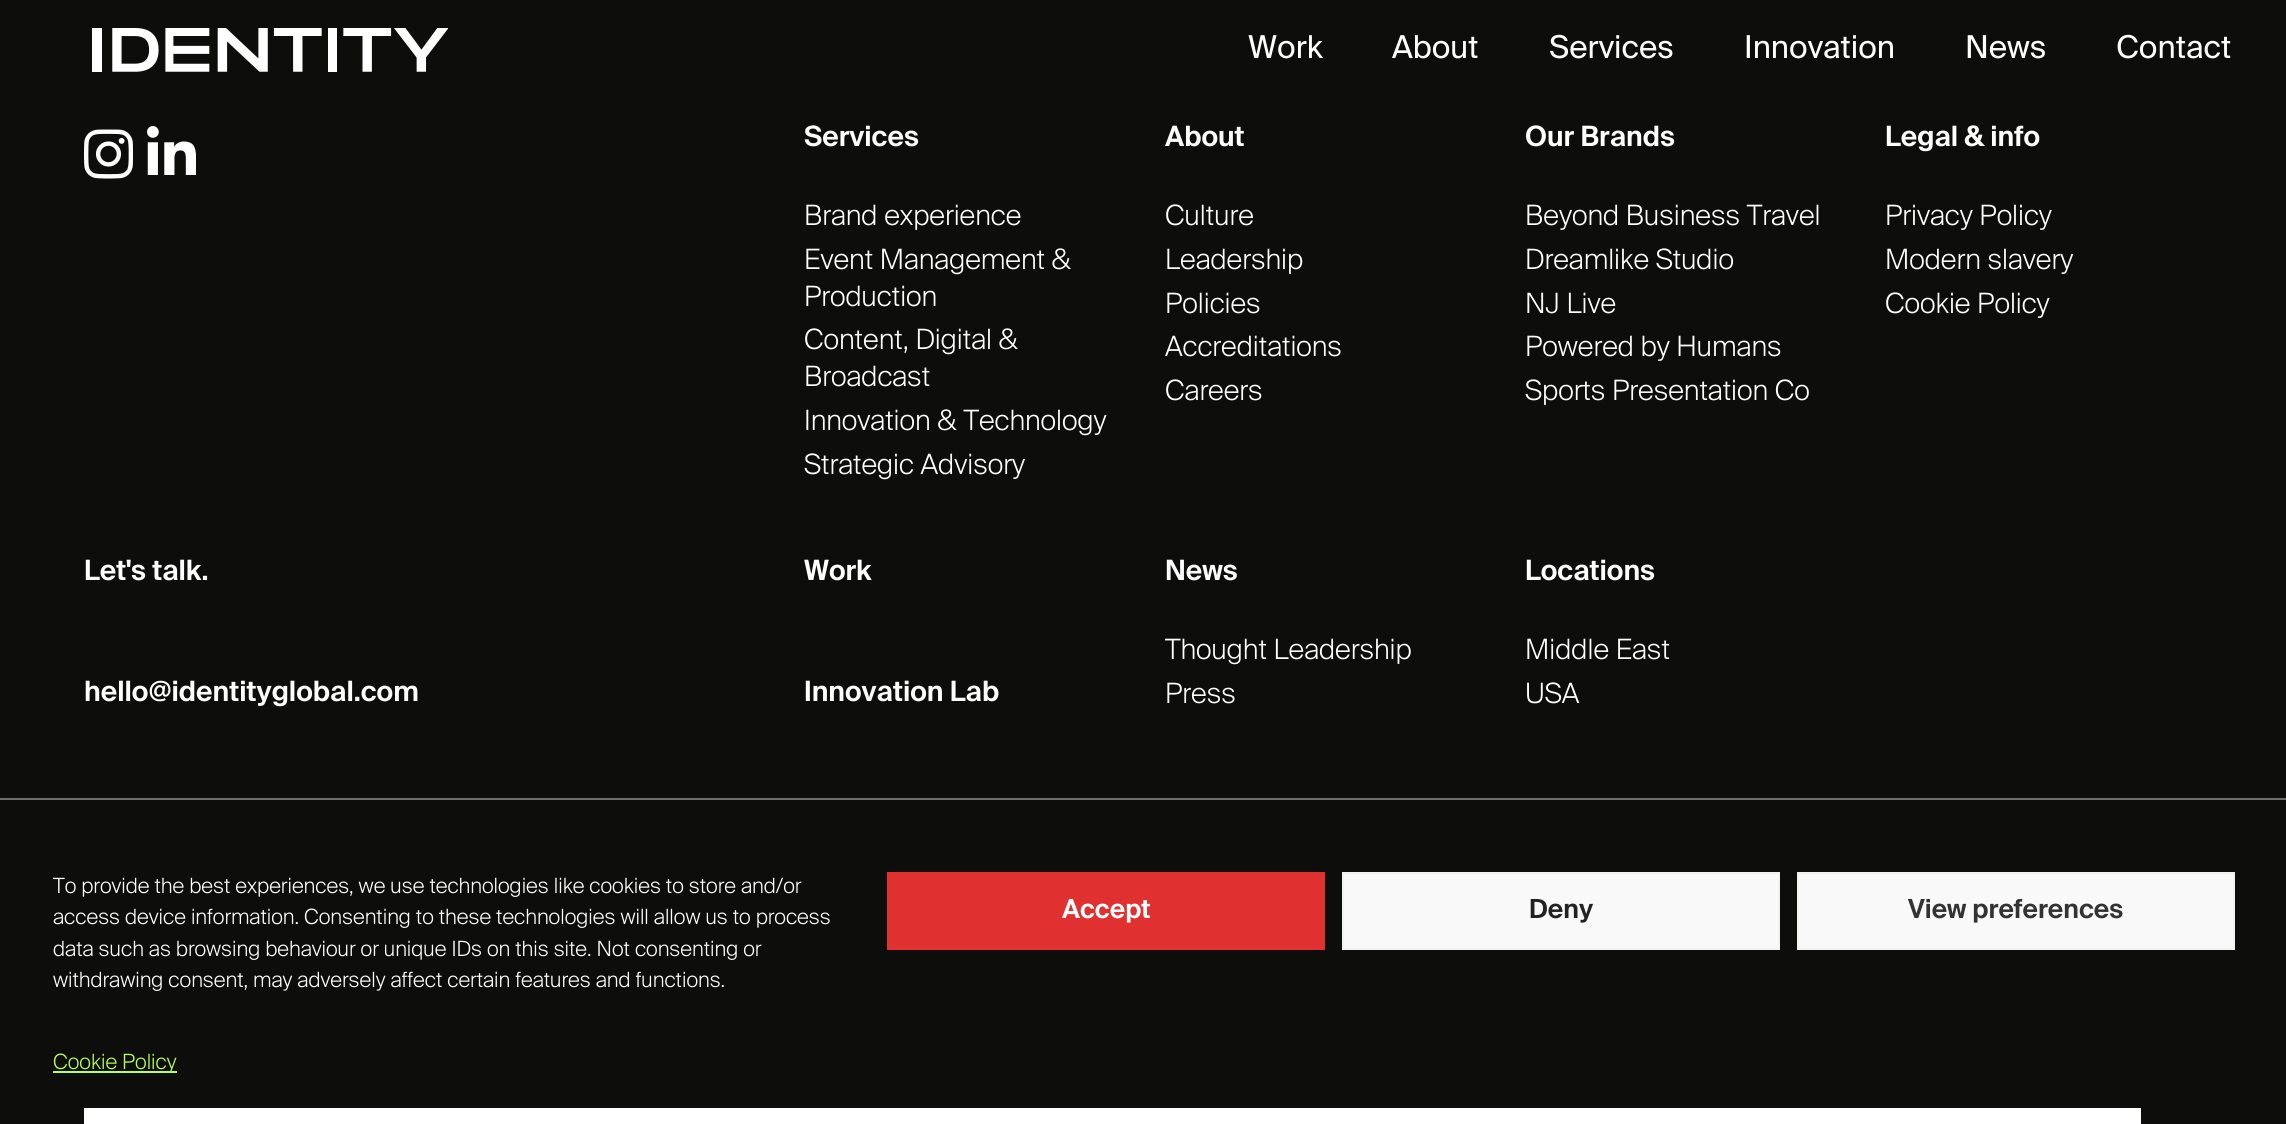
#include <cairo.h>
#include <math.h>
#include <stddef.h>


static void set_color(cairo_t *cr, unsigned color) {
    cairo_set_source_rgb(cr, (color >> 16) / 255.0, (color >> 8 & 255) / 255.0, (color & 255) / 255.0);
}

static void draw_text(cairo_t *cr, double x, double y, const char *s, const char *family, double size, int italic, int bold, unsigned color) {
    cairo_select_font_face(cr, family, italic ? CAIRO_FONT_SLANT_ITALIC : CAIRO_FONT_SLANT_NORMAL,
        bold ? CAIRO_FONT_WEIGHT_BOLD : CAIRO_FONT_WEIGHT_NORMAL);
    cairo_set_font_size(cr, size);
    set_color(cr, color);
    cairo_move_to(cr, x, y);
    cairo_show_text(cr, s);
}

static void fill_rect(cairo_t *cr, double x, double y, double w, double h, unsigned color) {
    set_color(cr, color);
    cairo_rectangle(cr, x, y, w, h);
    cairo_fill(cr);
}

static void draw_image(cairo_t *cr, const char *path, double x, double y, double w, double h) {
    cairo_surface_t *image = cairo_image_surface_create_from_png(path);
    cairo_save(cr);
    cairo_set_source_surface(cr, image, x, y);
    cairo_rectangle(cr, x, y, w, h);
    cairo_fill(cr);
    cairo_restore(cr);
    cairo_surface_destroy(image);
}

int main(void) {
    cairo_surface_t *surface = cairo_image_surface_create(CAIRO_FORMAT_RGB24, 2286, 1124);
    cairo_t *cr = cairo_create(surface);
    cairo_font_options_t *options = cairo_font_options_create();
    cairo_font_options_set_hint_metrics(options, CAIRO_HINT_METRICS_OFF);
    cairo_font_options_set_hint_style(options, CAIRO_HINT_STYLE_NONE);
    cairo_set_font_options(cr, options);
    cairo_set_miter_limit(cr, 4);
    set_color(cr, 0x0D0D0C);
    cairo_paint(cr);
    draw_image(cr, "assets/img1.png", 92, 28, 356, 44);
    draw_text(cr, 1248, 58, "Work", "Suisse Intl", 31.5, 0, 0, 0xFFFFFF);
    draw_text(cr, 1392, 58, "About", "Suisse Intl", 31.5, 0, 0, 0xFFFFFF);
    draw_text(cr, 1549, 58, "Services", "Suisse Intl", 31.5, 0, 0, 0xFFFFFF);
    draw_text(cr, 1744, 58, "Innovation", "Suisse Intl", 31.5, 0, 0, 0xFFFFFF);
    draw_text(cr, 1965, 58, "News", "Suisse Intl", 31.5, 0, 0, 0xFFFFFF);
    draw_text(cr, 2116, 58, "Contact", "Suisse Intl", 31.5, 0, 0, 0xFFFFFF);
    draw_image(cr, "assets/img2.png", 84, 129, 49, 50);
    draw_image(cr, "assets/img3.png", 147, 126, 49, 49);
    draw_text(cr, 804, 146, "Services", "Suisse Intl SemiBold", 28, 0, 0, 0xFFFFFF);
    draw_text(cr, 804, 225, "Brand experience", "Suisse Intl Light", 28, 0, 0, 0xFFFFFF);
    draw_text(cr, 804, 269, "Event Management &", "Suisse Intl Light", 28, 0, 0, 0xFFFFFF);
    draw_text(cr, 804, 306, "Production", "Suisse Intl Light", 28, 0, 0, 0xFFFFFF);
    draw_text(cr, 804, 349, "Content, Digital &", "Suisse Intl Light", 28, 0, 0, 0xFFFFFF);
    draw_text(cr, 804, 386, "Broadcast", "Suisse Intl Light", 28, 0, 0, 0xFFFFFF);
    draw_text(cr, 804, 430, "Innovation & Technology", "Suisse Intl Light", 28, 0, 0, 0xFFFFFF);
    draw_text(cr, 804, 474, "Strategic Advisory", "Suisse Intl Light", 28, 0, 0, 0xFFFFFF);
    draw_text(cr, 1165, 146, "About", "Suisse Intl SemiBold", 28, 0, 0, 0xFFFFFF);
    draw_text(cr, 1165, 225, "Culture", "Suisse Intl Light", 28, 0, 0, 0xFFFFFF);
    draw_text(cr, 1165, 269, "Leadership", "Suisse Intl Light", 28, 0, 0, 0xFFFFFF);
    draw_text(cr, 1165, 313, "Policies", "Suisse Intl Light", 28, 0, 0, 0xFFFFFF);
    draw_text(cr, 1165, 356, "Accreditations", "Suisse Intl Light", 28, 0, 0, 0xFFFFFF);
    draw_text(cr, 1165, 400, "Careers", "Suisse Intl Light", 28, 0, 0, 0xFFFFFF);
    draw_text(cr, 1525, 146, "Our Brands", "Suisse Intl SemiBold", 28, 0, 0, 0xFFFFFF);
    draw_text(cr, 1525, 225, "Beyond Business Travel", "Suisse Intl Light", 28, 0, 0, 0xFFFFFF);
    draw_text(cr, 1525, 269, "Dreamlike Studio", "Suisse Intl Light", 28, 0, 0, 0xFFFFFF);
    draw_text(cr, 1525, 313, "NJ Live", "Suisse Intl Light", 28, 0, 0, 0xFFFFFF);
    draw_text(cr, 1525, 356, "Powered by Humans", "Suisse Intl Light", 28, 0, 0, 0xFFFFFF);
    draw_text(cr, 1525, 400, "Sports Presentation Co", "Suisse Intl Light", 28, 0, 0, 0xFFFFFF);
    draw_text(cr, 1885, 146, "Legal & info", "Suisse Intl SemiBold", 28, 0, 0, 0xFFFFFF);
    draw_text(cr, 1885, 225, "Privacy Policy", "Suisse Intl Light", 28, 0, 0, 0xFFFFFF);
    draw_text(cr, 1885, 269, "Modern slavery", "Suisse Intl Light", 28, 0, 0, 0xFFFFFF);
    draw_text(cr, 1885, 313, "Cookie Policy", "Suisse Intl Light", 28, 0, 0, 0xFFFFFF);
    draw_text(cr, 84, 580, "Let's talk.", "Suisse Intl SemiBold", 28, 0, 0, 0xFFFFFF);
    draw_text(cr, 84, 701, "hello@identityglobal.com", "Suisse Intl SemiBold", 28, 0, 0, 0xFFFFFF);
    draw_text(cr, 804, 580, "Work", "Suisse Intl SemiBold", 28, 0, 0, 0xFFFFFF);
    draw_text(cr, 804, 701, "Innovation Lab", "Suisse Intl SemiBold", 28, 0, 0, 0xFFFFFF);
    draw_text(cr, 1165, 580, "News", "Suisse Intl SemiBold", 28, 0, 0, 0xFFFFFF);
    draw_text(cr, 1165, 659, "Thought Leadership", "Suisse Intl Light", 28, 0, 0, 0xFFFFFF);
    draw_text(cr, 1165, 703, "Press", "Suisse Intl Light", 28, 0, 0, 0xFFFFFF);
    draw_text(cr, 1525, 580, "Locations", "Suisse Intl SemiBold", 28, 0, 0, 0xFFFFFF);
    draw_text(cr, 1525, 659, "Middle East", "Suisse Intl Light", 28, 0, 0, 0xFFFFFF);
    draw_text(cr, 1525, 703, "USA", "Suisse Intl Light", 28, 0, 0, 0xFFFFFF);
    fill_rect(cr, 0, 798, 2286, 2, 0x6E6E6D);
    draw_image(cr, "assets/img4.png", 84, 1108, 2057, 16);
    draw_text(cr, 53, 893, "To provide the best experiences, we use technologies like cookies to store and/or", "Suisse Intl Light", 21, 0, 0, 0xFFFFFF);
    draw_text(cr, 53, 924, "access device information. Consenting to these technologies will allow us to process", "Suisse Intl Light", 21, 0, 0, 0xFFFFFF);
    draw_text(cr, 53, 956, "data such as browsing behaviour or unique IDs on this site. Not consenting or", "Suisse Intl Light", 21, 0, 0, 0xFFFFFF);
    draw_text(cr, 53, 987, "withdrawing consent, may adversely affect certain features and functions.", "Suisse Intl Light", 21, 0, 0, 0xFFFFFF);
    fill_rect(cr, 887, 872, 438, 78, 0xE03030);
    draw_text(cr, 1062, 918, "Accept", "Suisse Intl SemiBold", 26.25, 0, 0, 0xFFFFFF);
    set_color(cr, 0xF9F9F9);
    cairo_rectangle(cr, 1343, 873, 436, 76);
    cairo_fill_preserve(cr);
    set_color(cr, 0xF2F2F2);
    cairo_stroke(cr);
    draw_text(cr, 1529, 918, "Deny", "Suisse Intl SemiBold", 26.25, 0, 0, 0x222222);
    set_color(cr, 0xF9F9F9);
    cairo_rectangle(cr, 1798, 873, 436, 76);
    cairo_fill_preserve(cr);
    set_color(cr, 0xF2F2F2);
    cairo_stroke(cr);
    draw_text(cr, 1908, 918, "View preferences", "Suisse Intl SemiBold", 26.25, 0, 0, 0x333333);
    fill_rect(cr, 53, 1071, 124, 2, 0xB8FF52);
    draw_text(cr, 53, 1069, "Cookie Policy", "Suisse Intl Light", 21, 0, 0, 0xB8FF52);
    cairo_surface_write_to_png(surface, "output.png");
    cairo_font_options_destroy(options);
    cairo_destroy(cr);
    cairo_surface_destroy(surface);
    return 0;
}
